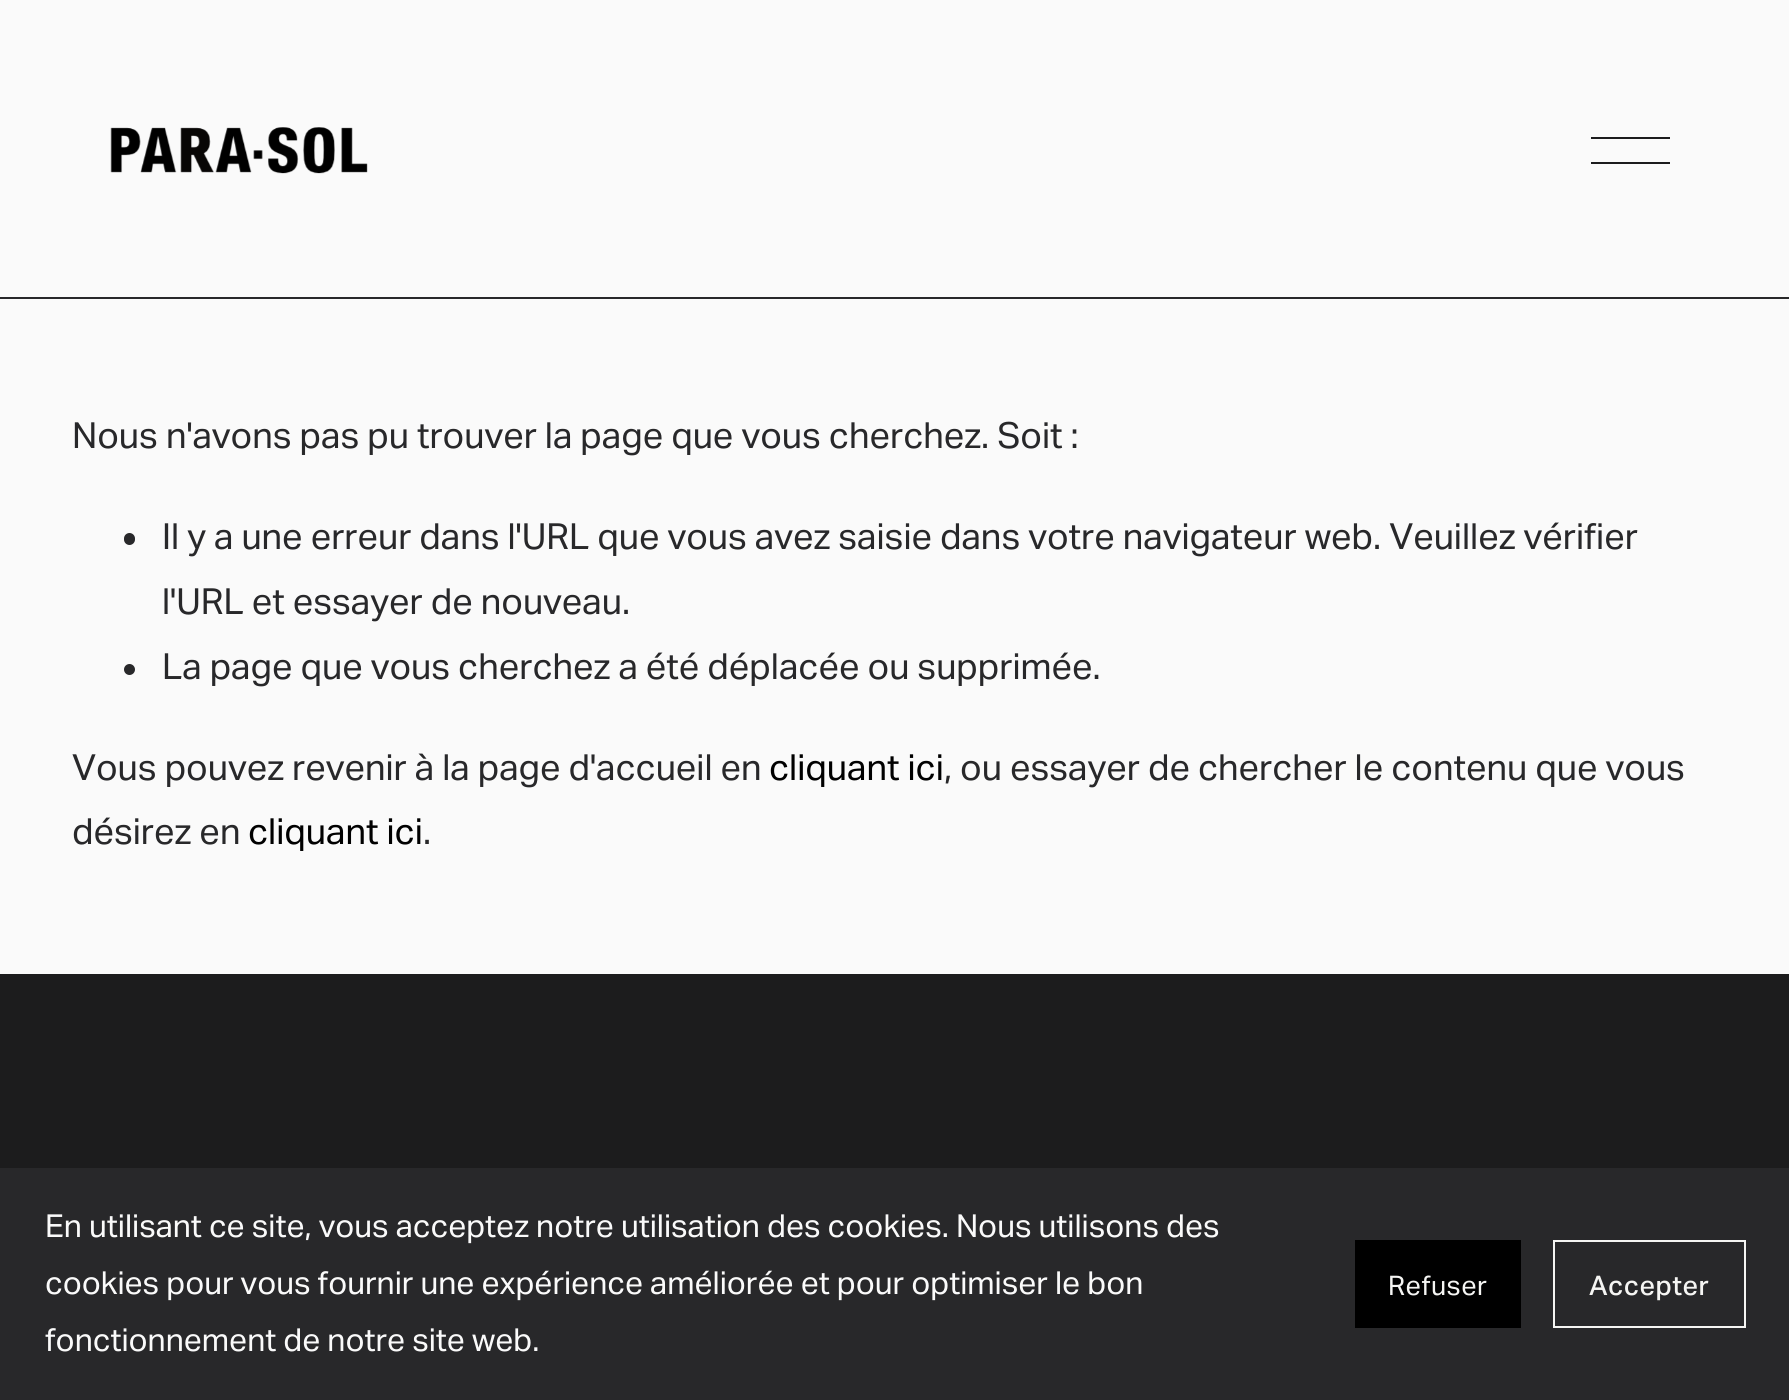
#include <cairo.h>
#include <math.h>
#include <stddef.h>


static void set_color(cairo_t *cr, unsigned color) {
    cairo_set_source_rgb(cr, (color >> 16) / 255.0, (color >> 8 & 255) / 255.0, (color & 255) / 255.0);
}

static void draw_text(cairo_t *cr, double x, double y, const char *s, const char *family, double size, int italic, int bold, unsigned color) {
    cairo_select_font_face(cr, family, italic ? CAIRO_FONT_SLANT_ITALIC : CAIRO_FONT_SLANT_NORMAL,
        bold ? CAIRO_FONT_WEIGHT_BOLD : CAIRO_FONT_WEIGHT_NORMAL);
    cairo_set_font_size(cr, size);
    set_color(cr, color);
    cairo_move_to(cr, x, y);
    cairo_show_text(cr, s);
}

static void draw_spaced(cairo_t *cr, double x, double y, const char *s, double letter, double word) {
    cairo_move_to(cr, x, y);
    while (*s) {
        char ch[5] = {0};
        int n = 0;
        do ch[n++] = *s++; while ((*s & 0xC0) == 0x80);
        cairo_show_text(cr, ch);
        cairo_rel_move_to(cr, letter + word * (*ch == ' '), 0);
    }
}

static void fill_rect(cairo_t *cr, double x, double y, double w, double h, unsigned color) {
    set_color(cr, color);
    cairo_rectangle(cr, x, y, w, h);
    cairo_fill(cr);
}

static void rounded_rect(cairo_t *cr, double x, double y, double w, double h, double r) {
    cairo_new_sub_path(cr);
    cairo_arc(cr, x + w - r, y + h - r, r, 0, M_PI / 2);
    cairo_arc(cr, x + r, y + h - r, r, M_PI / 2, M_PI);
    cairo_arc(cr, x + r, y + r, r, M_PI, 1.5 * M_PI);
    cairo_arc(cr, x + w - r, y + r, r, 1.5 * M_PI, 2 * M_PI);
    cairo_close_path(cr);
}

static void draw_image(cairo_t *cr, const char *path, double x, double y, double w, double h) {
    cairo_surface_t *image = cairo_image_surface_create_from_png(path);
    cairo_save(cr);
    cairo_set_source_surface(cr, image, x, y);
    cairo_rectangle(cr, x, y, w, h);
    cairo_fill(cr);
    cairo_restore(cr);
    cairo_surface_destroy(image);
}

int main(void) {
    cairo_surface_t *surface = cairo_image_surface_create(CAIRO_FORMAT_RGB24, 1789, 1400);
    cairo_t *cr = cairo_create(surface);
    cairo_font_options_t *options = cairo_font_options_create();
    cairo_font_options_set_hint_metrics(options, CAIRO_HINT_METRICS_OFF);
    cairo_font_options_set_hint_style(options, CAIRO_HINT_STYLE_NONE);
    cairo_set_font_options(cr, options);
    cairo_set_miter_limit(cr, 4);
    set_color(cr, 0xFAFAFA);
    cairo_paint(cr);
    draw_image(cr, "assets/img1.png", 110, 127, 258, 47);
    fill_rect(cr, 1591, 137, 79, 2, 0x1C1C1D);
    fill_rect(cr, 1591, 162, 79, 2, 0x1C1C1D);
    fill_rect(cr, 0, 297, 1789, 2, 0x28282A);
    draw_text(cr, 72, 448, "Nous n'avons pas pu trouver la page que vous cherchez. Soit :", "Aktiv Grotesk", 36, 0, 0, 0x28282A);
    rounded_rect(cr, 124, 533, 11, 12, 5.5);
    cairo_fill(cr);
    draw_text(cr, 162, 549, "Il y a une erreur dans l'URL que vous avez saisie dans votre navigateur web. Veuillez vérifier", "Aktiv Grotesk", 36, 0, 0, 0x28282A);
    draw_text(cr, 162, 614, "l'URL et essayer de nouveau.", "Aktiv Grotesk", 36, 0, 0, 0x28282A);
    cairo_new_path(cr);
    cairo_arc(cr, 129.5, 669.5, 5.5, 0, 2 * M_PI);
    cairo_fill(cr);
    draw_text(cr, 162, 679, "La page que vous cherchez a été déplacée ou supprimée.", "Aktiv Grotesk", 36, 0, 0, 0x28282A);
    draw_text(cr, 72, 780, "Vous pouvez revenir à la page d'accueil en", "Aktiv Grotesk", 36, 0, 0, 0x28282A);
    draw_text(cr, 769, 780, "cliquant ici", "Aktiv Grotesk", 36, 0, 0, 0x000000);
    draw_text(cr, 944, 780, ", ou essayer de chercher le contenu que vous", "Aktiv Grotesk", 36, 0, 0, 0x28282A);
    draw_text(cr, 72, 844, "désirez en", "Aktiv Grotesk", 36, 0, 0, 0x28282A);
    draw_text(cr, 248, 844, "cliquant ici", "Aktiv Grotesk", 36, 0, 0, 0x000000);
    draw_text(cr, 423, 844, ".", "Aktiv Grotesk", 36, 0, 0, 0x28282A);
    fill_rect(cr, 0, 974, 1789, 194, 0x1C1C1D);
    fill_rect(cr, 0, 1168, 1789, 232, 0x28282A);
    draw_text(cr, 45, 1237, "En utilisant ce site, vous acceptez notre utilisation des cookies. Nous utilisons des", "Aktiv Grotesk", 31.7, 0, 0, 0xFAFAFA);
    draw_text(cr, 45, 1294, "cookies pour vous fournir une expérience améliorée et pour optimiser le bon", "Aktiv Grotesk", 31.7, 0, 0, 0xFAFAFA);
    draw_text(cr, 45, 1351, "fonctionnement de notre site web.", "Aktiv Grotesk", 31.7, 0, 0, 0xFAFAFA);
    fill_rect(cr, 1355, 1240, 166, 88, 0x000000);
    cairo_set_font_size(cr, 27);
    set_color(cr, 0xF5F5F3);
    draw_spaced(cr, 1388, 1295, "Refuser", 0.5, 0);
    cairo_rectangle(cr, 1554, 1241, 191, 86);
    cairo_stroke(cr);
    cairo_select_font_face(cr, "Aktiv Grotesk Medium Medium", CAIRO_FONT_SLANT_NORMAL, CAIRO_FONT_WEIGHT_NORMAL);
    draw_spaced(cr, 1589, 1295, "Accepter", 0.5, 0);
    cairo_surface_write_to_png(surface, "output.png");
    cairo_font_options_destroy(options);
    cairo_destroy(cr);
    cairo_surface_destroy(surface);
    return 0;
}
